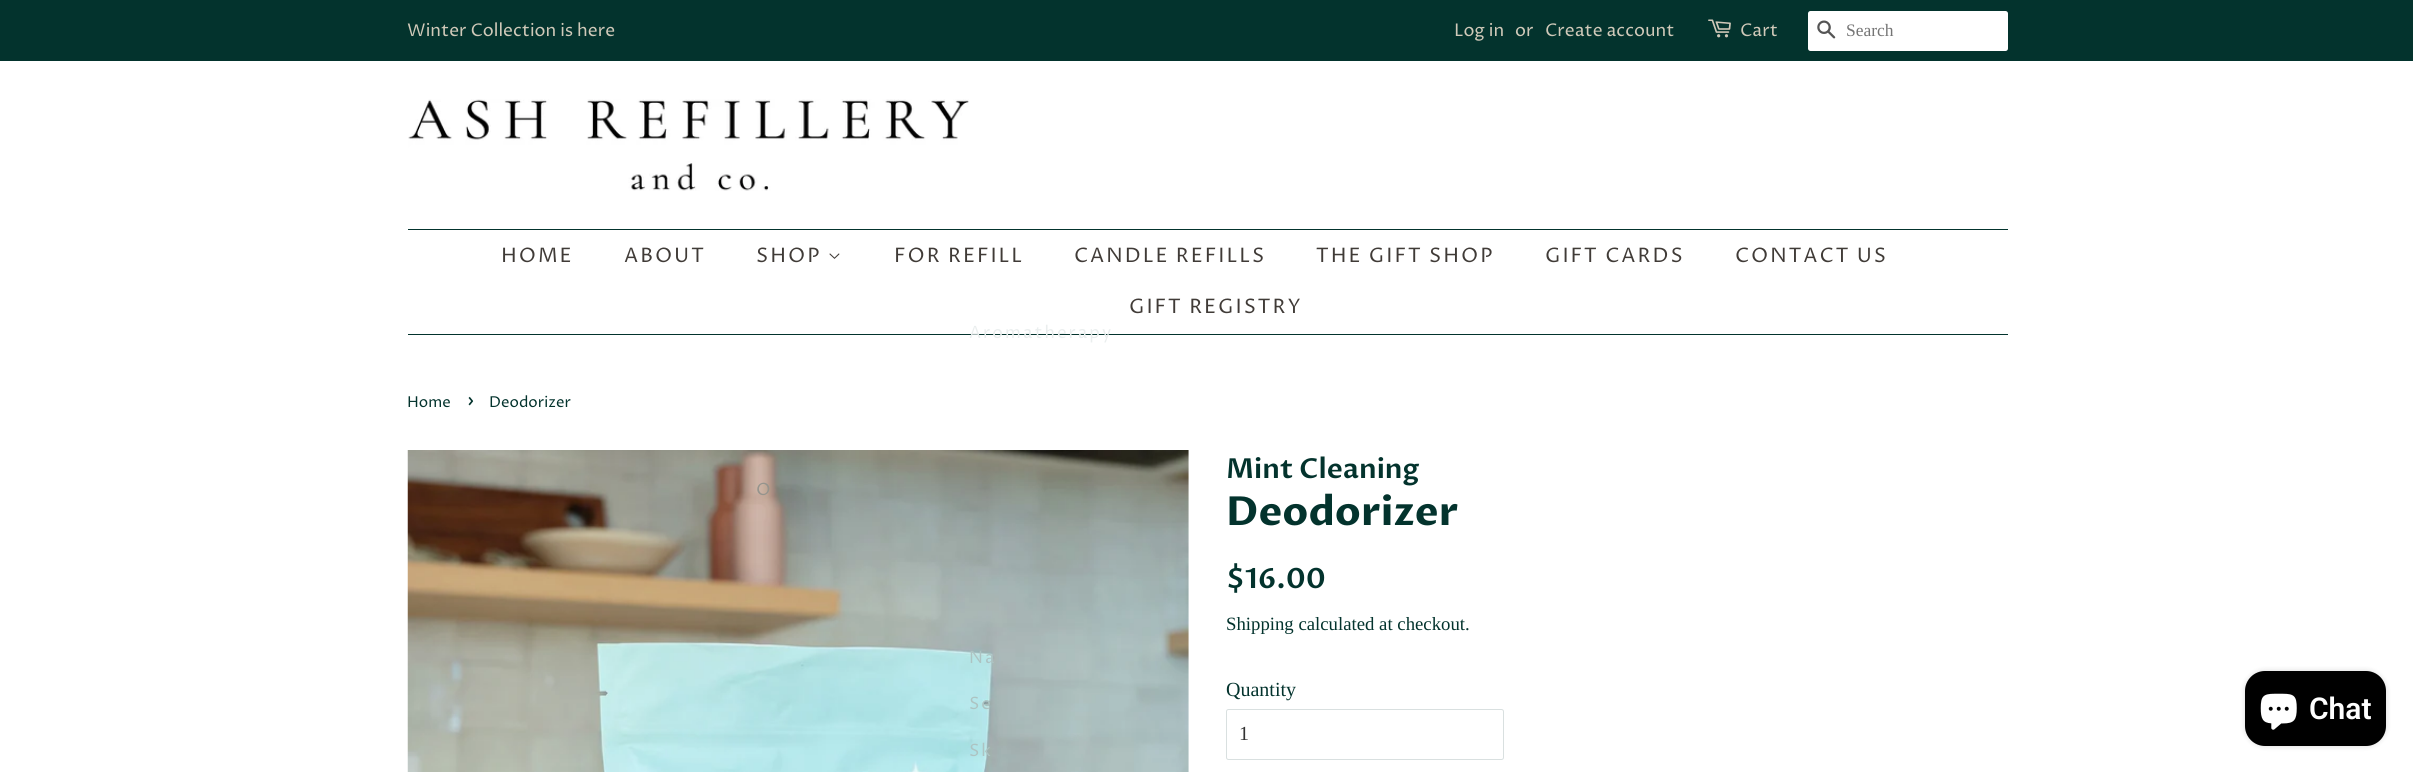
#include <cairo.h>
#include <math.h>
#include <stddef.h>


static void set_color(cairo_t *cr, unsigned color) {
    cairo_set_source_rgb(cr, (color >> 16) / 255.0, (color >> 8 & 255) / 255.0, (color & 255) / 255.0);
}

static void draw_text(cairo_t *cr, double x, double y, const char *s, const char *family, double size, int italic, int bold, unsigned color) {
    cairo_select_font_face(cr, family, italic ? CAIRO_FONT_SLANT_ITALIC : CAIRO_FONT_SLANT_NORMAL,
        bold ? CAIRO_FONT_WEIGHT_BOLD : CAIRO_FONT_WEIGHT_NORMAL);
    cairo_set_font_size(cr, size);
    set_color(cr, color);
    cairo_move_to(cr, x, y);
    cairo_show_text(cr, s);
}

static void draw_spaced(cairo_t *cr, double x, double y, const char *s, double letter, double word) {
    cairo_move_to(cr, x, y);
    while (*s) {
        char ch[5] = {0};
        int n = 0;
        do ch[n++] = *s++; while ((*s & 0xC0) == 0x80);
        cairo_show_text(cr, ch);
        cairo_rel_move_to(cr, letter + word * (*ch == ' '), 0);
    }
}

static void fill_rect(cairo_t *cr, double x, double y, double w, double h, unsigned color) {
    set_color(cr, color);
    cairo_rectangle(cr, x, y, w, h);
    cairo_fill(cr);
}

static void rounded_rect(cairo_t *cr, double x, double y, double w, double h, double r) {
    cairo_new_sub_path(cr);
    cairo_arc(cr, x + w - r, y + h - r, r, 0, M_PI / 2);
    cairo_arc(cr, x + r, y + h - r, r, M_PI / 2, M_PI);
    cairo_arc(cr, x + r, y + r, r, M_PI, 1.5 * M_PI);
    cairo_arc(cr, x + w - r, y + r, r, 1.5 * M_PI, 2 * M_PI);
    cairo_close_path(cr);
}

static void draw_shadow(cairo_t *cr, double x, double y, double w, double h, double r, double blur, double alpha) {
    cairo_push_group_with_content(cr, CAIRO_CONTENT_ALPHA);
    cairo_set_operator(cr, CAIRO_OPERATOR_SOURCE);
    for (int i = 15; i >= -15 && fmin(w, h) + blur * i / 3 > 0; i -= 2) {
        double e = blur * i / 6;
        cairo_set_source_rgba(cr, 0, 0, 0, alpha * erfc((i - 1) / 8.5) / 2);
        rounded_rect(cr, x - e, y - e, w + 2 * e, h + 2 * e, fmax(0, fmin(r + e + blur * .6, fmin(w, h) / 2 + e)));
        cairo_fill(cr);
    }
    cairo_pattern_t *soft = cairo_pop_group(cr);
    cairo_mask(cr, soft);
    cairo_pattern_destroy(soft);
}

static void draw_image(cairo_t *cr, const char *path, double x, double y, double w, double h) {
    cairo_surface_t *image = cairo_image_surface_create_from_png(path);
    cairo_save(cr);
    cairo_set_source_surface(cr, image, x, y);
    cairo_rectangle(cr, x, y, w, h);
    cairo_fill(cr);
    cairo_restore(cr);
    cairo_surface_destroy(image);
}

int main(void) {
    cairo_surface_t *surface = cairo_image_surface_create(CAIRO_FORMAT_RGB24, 2413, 772);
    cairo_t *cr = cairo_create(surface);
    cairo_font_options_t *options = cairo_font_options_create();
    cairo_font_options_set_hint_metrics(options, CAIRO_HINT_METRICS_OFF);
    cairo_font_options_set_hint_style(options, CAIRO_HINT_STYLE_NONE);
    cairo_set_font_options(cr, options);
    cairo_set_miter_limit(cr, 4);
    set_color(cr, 0xFFFFFF);
    cairo_paint(cr);
    fill_rect(cr, 0, 0, 2413, 61, 0x03332D);
    draw_text(cr, 407, 36, "Winter Collection is here", "Proza Libre", 17.5, 0, 0, 0xD0C9B9);
    draw_text(cr, 1454, 36, "Log in", "Proza Libre", 17.5, 0, 0, 0xD0C9B9);
    draw_text(cr, 1515, 36, "or", "Proza Libre", 17.5, 0, 0, 0xD0C9B9);
    draw_text(cr, 1545, 36, "Create account", "Proza Libre", 17.5, 0, 0, 0xD0C9B9);
    draw_image(cr, "assets/img1.png", 1708, 19, 23, 19);
    draw_text(cr, 1740, 36, "Cart", "Proza Libre", 17.5, 0, 0, 0xD0C9B9);
    set_color(cr, 0xFFFFFF);
    rounded_rect(cr, 1808, 11, 200, 40, 2.5);
    cairo_fill(cr);
    draw_image(cr, "assets/img2.png", 1817, 20, 19, 19);
    draw_text(cr, 1846, 36, "Search", "Liberation Serif", 17.5, 0, 0, 0x757575);
    draw_image(cr, "assets/img3.png", 408, 99, 561, 92);
    fill_rect(cr, 408, 229, 1600, 1, 0x03332D);
    fill_rect(cr, 408, 334, 1600, 1, 0x03332D);
    cairo_select_font_face(cr, "Proza Libre", CAIRO_FONT_SLANT_NORMAL, CAIRO_FONT_WEIGHT_NORMAL);
    cairo_set_font_size(cr, 20);
    set_color(cr, 0x403B37);
    draw_spaced(cr, 501, 262, "HOME", 2, 0);
    draw_spaced(cr, 624, 262, "ABOUT", 2, 0);
    draw_spaced(cr, 756, 262, "SHOP", 2, 0);
    draw_image(cr, "assets/img4.png", 829, 253, 11, 6);
    cairo_set_font_size(cr, 17);
    set_color(cr, 0xEAEEEE);
    draw_spaced(cr, 969, 338, "Aromatherapy", 2, 0);
    draw_image(cr, "assets/img5.png", 407, 450, 782, 322);
    set_color(cr, 0x95948D);
    draw_spaced(cr, 756, 495, "O", 2, 0);
    set_color(cr, 0xADC3C2);
    draw_spaced(cr, 969, 663, "Na", 2, 0);
    draw_spaced(cr, 969, 709, "Se", 2, 0);
    draw_spaced(cr, 969, 756, "Sk", 2, 0);
    cairo_set_font_size(cr, 20);
    set_color(cr, 0x403B37);
    draw_spaced(cr, 894, 262, "FOR REFILL", 2, 0);
    draw_spaced(cr, 1074, 262, "CANDLE REFILLS", 2, 0);
    draw_spaced(cr, 1316, 262, "THE GIFT SHOP", 2, 0);
    draw_spaced(cr, 1545, 262, "GIFT CARDS", 2, 0);
    draw_spaced(cr, 1735, 262, "CONTACT US", 2, 0);
    draw_spaced(cr, 1129, 313, "GIFT REGISTRY", 2, 0);
    draw_text(cr, 407, 407, "Home", "Proza Libre", 15, 0, 0, 0x03332D);
    draw_text(cr, 467, 407, "›", "Proza Libre", 21, 0, 0, 0x03332D);
    draw_text(cr, 489, 407, "Deodorizer", "Proza Libre", 15, 0, 0, 0x03332D);
    draw_text(cr, 1226, 478, "Mint Cleaning", "Proza Libre SemiBold", 27.5, 0, 0, 0x03332D);
    draw_text(cr, 1226, 525, "Deodorizer", "Proza Libre", 40, 0, 1, 0x03332D);
    draw_text(cr, 1226, 588, "$16.00", "Proza Libre SemiBold", 28, 0, 0, 0x03332D);
    draw_text(cr, 1226, 630, "Shipping calculated at checkout.", "Liberation Serif", 18.75, 0, 0, 0x03332D);
    draw_text(cr, 1226, 696, "Quantity", "Liberation Serif", 20, 0, 0, 0x03332D);
    rounded_rect(cr, 1226.5, 709.5, 277, 50, 2);
    set_color(cr, 0xD9E0E0);
    cairo_set_line_width(cr, 1);
    cairo_stroke(cr);
    draw_text(cr, 1239, 740, "1", "Liberation Serif", 20, 0, 0, 0x333333);
    set_color(cr, 0x000000);
    draw_shadow(cr, 2245, 671, 141, 75, 20, 3, 0.15);
    set_color(cr, 0x000000);
    rounded_rect(cr, 2245, 671, 141, 75, 20);
    cairo_fill(cr);
    draw_image(cr, "assets/img6.png", 2260, 693, 37, 37);
    draw_text(cr, 2309, 719, "Chat", "Roboto SemiBold", 30, 0, 0, 0xFFFFFF);
    cairo_surface_write_to_png(surface, "output.png");
    cairo_font_options_destroy(options);
    cairo_destroy(cr);
    cairo_surface_destroy(surface);
    return 0;
}
